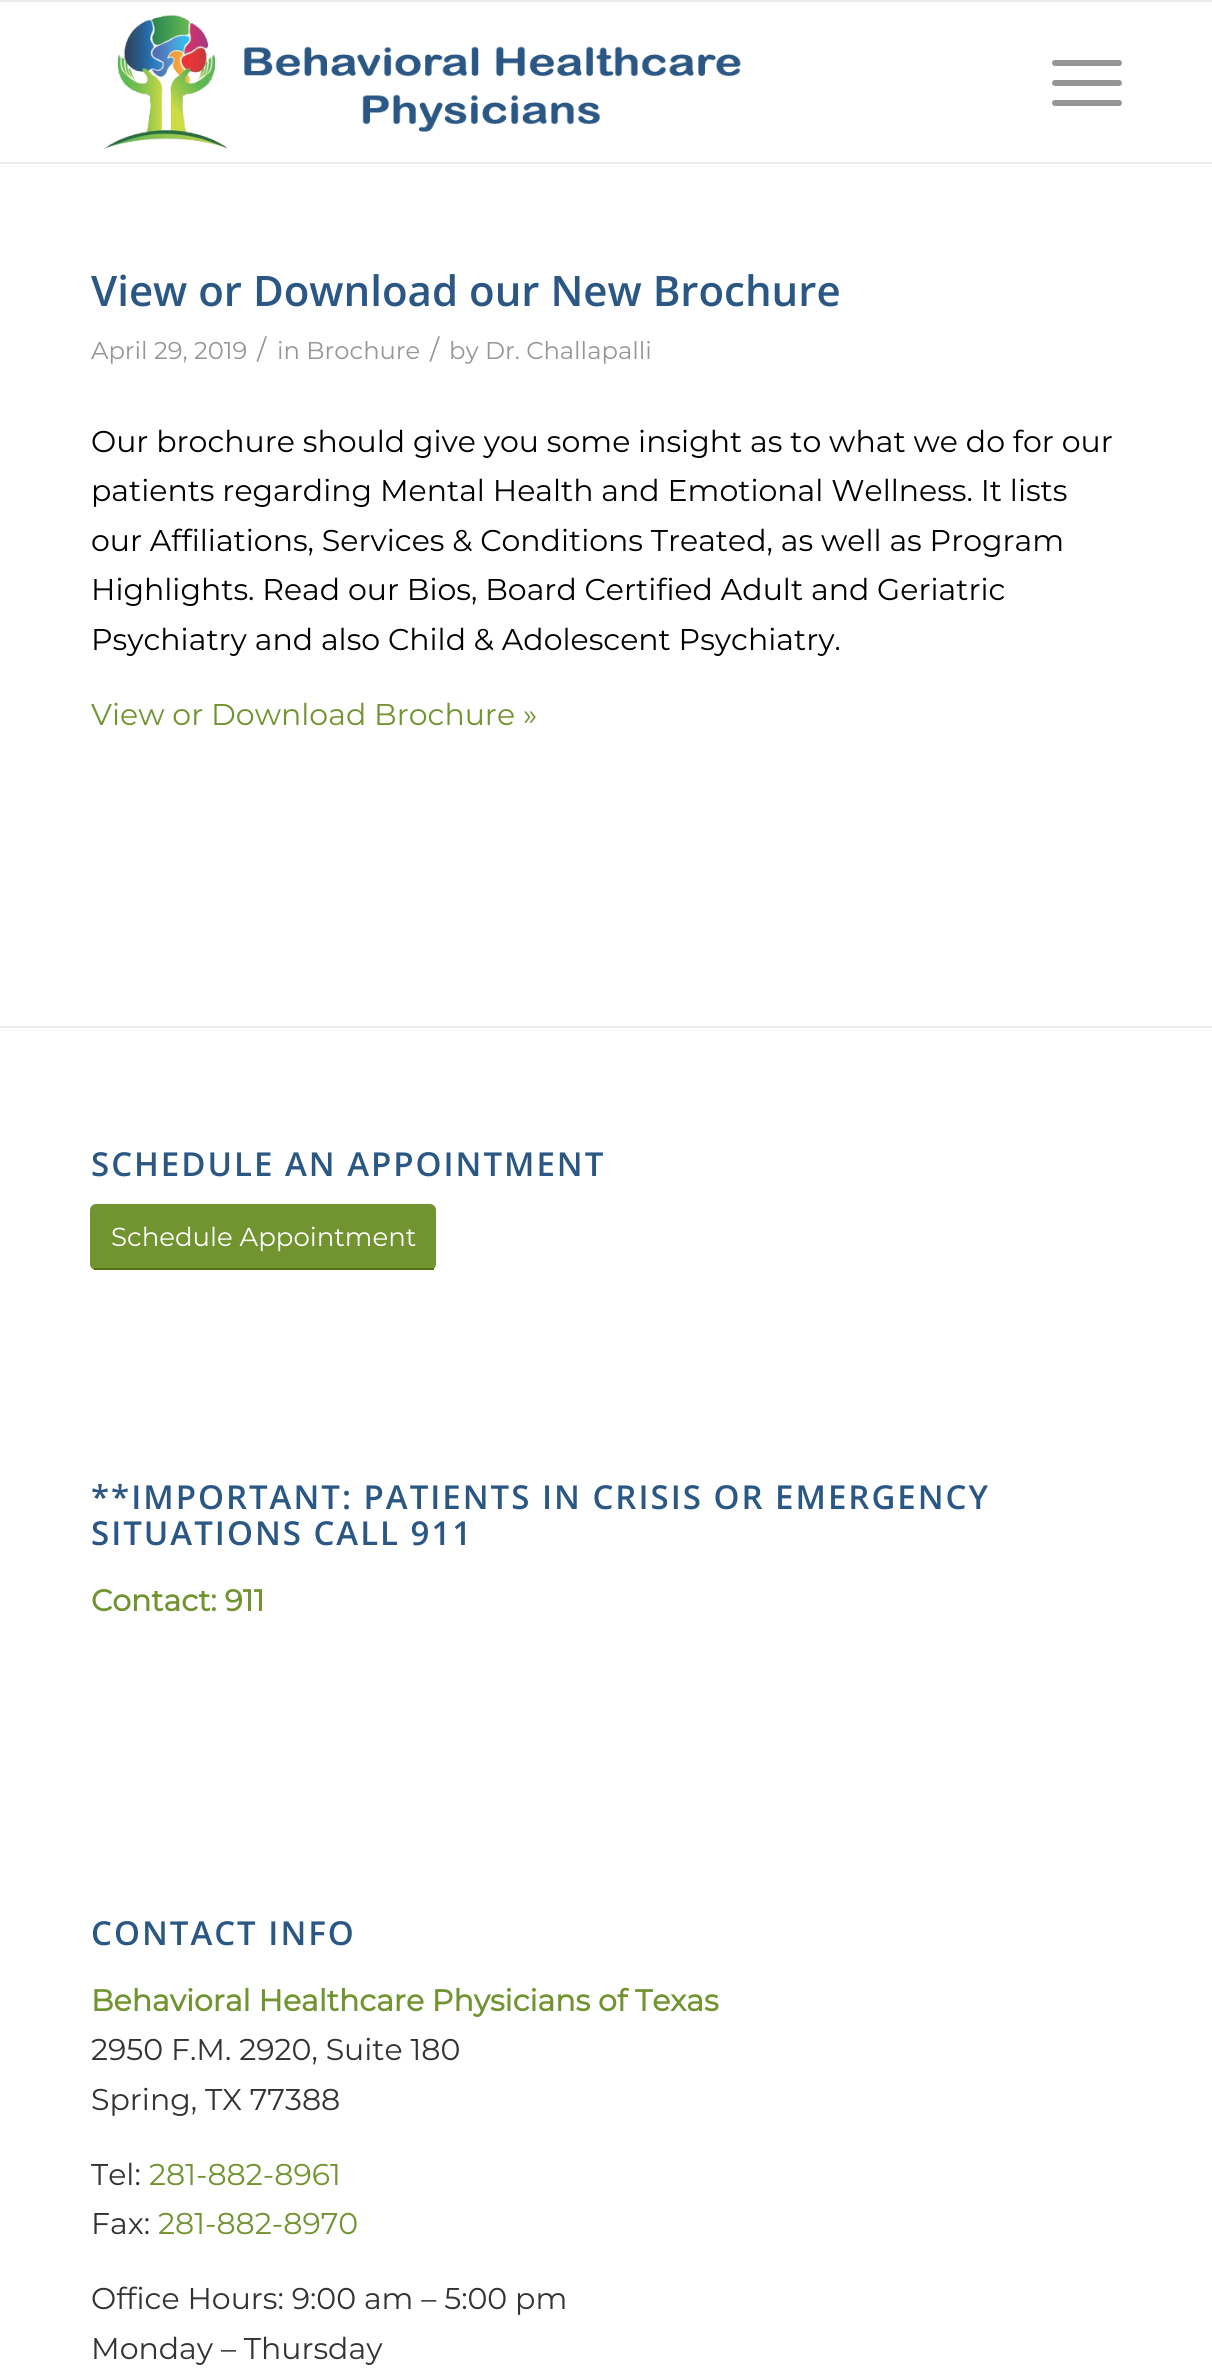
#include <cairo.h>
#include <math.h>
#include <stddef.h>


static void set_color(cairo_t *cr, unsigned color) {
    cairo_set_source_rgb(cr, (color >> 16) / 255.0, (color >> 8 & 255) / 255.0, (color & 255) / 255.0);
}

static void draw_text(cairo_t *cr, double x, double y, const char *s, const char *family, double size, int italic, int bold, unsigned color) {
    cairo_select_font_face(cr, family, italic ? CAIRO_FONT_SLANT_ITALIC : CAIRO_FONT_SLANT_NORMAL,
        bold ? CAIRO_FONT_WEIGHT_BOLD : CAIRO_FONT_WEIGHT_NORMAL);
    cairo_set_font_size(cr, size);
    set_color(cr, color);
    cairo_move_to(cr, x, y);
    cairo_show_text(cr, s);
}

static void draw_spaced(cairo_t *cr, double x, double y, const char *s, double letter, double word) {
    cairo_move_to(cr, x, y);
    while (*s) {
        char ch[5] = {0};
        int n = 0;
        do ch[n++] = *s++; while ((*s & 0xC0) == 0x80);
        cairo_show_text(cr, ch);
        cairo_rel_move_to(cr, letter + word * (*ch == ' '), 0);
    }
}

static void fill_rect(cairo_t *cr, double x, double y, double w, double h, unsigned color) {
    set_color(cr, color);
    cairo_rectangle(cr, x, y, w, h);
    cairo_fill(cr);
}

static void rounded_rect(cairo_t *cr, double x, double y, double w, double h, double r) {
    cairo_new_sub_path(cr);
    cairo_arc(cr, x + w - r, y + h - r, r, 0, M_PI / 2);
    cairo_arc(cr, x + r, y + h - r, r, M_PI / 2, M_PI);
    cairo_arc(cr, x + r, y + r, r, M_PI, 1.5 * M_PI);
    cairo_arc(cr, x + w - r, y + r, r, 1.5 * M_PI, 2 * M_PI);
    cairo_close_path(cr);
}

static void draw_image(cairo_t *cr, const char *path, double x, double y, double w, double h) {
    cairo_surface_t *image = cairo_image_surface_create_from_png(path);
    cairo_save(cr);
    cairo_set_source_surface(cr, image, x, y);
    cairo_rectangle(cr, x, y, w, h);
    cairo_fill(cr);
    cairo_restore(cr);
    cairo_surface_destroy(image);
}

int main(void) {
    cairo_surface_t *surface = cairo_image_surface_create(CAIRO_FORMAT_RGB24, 1212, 2377);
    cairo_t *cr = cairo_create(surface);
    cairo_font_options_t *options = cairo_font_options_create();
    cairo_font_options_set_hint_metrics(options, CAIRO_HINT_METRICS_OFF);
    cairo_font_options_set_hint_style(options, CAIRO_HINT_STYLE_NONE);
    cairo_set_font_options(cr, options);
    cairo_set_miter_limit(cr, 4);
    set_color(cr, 0xFFFFFF);
    cairo_paint(cr);
    fill_rect(cr, 0, 0, 1212, 2, 0xEBEBEB);
    fill_rect(cr, 0, 162, 1212, 2, 0xEBEBEB);
    draw_image(cr, "assets/img1.png", 104, 15, 637, 134);
    set_color(cr, 0x969696);
    rounded_rect(cr, 1052, 80, 70, 6, 3);
    cairo_fill(cr);
    rounded_rect(cr, 1052, 60, 70, 6, 3);
    cairo_fill(cr);
    rounded_rect(cr, 1052, 100, 70, 6, 3);
    cairo_fill(cr);
    draw_text(cr, 91, 306, "View or Download our New Brochure", "Open Sans SemiBold", 42, 0, 0, 0x2B5784);
    draw_text(cr, 91, 359, "April 29, 2019", "Montserrat Thin", 24.25, 0, 0, 0x969696);
    draw_text(cr, 257, 359, "/", "Montserrat Thin", 27, 0, 0, 0x969696);
    draw_text(cr, 277, 359, "in Brochure", "Montserrat Thin", 24.25, 0, 0, 0x969696);
    draw_text(cr, 430, 359, "/", "Montserrat Thin", 27, 0, 0, 0x969696);
    draw_text(cr, 449, 359, "by Dr. Challapalli", "Montserrat Thin", 24.25, 0, 0, 0x969696);
    draw_text(cr, 91, 452, "Our brochure should give you some insight as to what we do for our", "Montserrat Thin", 30, 0, 0, 0x000000);
    draw_text(cr, 91, 501, "patients regarding Mental Health and Emotional Wellness. It lists", "Montserrat Thin", 30, 0, 0, 0x000000);
    draw_text(cr, 91, 551, "our Affiliations, Services & Conditions Treated, as well as Program", "Montserrat Thin", 30, 0, 0, 0x000000);
    draw_text(cr, 91, 600, "Highlights. Read our Bios, Board Certified Adult and Geriatric", "Montserrat Thin", 30, 0, 0, 0x000000);
    draw_text(cr, 91, 650, "Psychiatry and also Child & Adolescent Psychiatry.", "Montserrat Thin", 30, 0, 0, 0x000000);
    draw_text(cr, 91, 725, "View or Download Brochure »", "Montserrat Thin", 30, 0, 0, 0x719430);
    fill_rect(cr, 0, 1026, 1212, 2, 0xEBEBEB);
    cairo_select_font_face(cr, "Open Sans SemiBold", CAIRO_FONT_SLANT_NORMAL, CAIRO_FONT_WEIGHT_NORMAL);
    cairo_set_font_size(cr, 33);
    set_color(cr, 0x2B5784);
    draw_spaced(cr, 91, 1176, "SCHEDULE AN APPOINTMENT", 2, 0);
    set_color(cr, 0x719430);
    rounded_rect(cr, 90, 1204, 346, 66, 6);
    cairo_fill(cr);
    fill_rect(cr, 94, 1268, 340, 2, 0x507210);
    draw_text(cr, 111, 1246, "Schedule Appointment", "Montserrat Thin", 26, 0, 0, 0xFFFFFF);
    cairo_select_font_face(cr, "Open Sans SemiBold", CAIRO_FONT_SLANT_NORMAL, CAIRO_FONT_WEIGHT_NORMAL);
    cairo_set_font_size(cr, 33);
    set_color(cr, 0x2B5784);
    draw_spaced(cr, 91, 1509, "**IMPORTANT: PATIENTS IN CRISIS OR EMERGENCY", 2, 0);
    draw_spaced(cr, 91, 1545, "SITUATIONS CALL 911", 2, 0);
    draw_text(cr, 91, 1611, "Contact: 911", "Montserrat", 30, 0, 1, 0x719430);
    cairo_select_font_face(cr, "Open Sans SemiBold", CAIRO_FONT_SLANT_NORMAL, CAIRO_FONT_WEIGHT_NORMAL);
    cairo_set_font_size(cr, 33);
    set_color(cr, 0x2B5784);
    draw_spaced(cr, 91, 1945, "CONTACT INFO", 2, 0);
    draw_text(cr, 91, 2011, "Behavioral Healthcare Physicians of Texas", "Montserrat", 30, 0, 1, 0x719430);
    draw_text(cr, 91, 2060, "2950 F.M. 2920, Suite 180", "Montserrat Thin", 30, 0, 0, 0x333333);
    draw_text(cr, 91, 2110, "Spring, TX 77388", "Montserrat Thin", 30, 0, 0, 0x333333);
    draw_text(cr, 91, 2185, "Tel:", "Montserrat Thin", 30, 0, 0, 0x333333);
    draw_text(cr, 149, 2185, "281-882-8961", "Montserrat Thin", 30, 0, 0, 0x719430);
    draw_text(cr, 91, 2234, "Fax:", "Montserrat Thin", 30, 0, 0, 0x333333);
    draw_text(cr, 158, 2234, "281-882-8970", "Montserrat Thin", 30, 0, 0, 0x719430);
    draw_text(cr, 91, 2309, "Office Hours: 9:00 am – 5:00 pm", "Montserrat Thin", 30, 0, 0, 0x333333);
    draw_text(cr, 91, 2359, "Monday – Thursday", "Montserrat Thin", 30, 0, 0, 0x333333);
    cairo_surface_write_to_png(surface, "output.png");
    cairo_font_options_destroy(options);
    cairo_destroy(cr);
    cairo_surface_destroy(surface);
    return 0;
}
